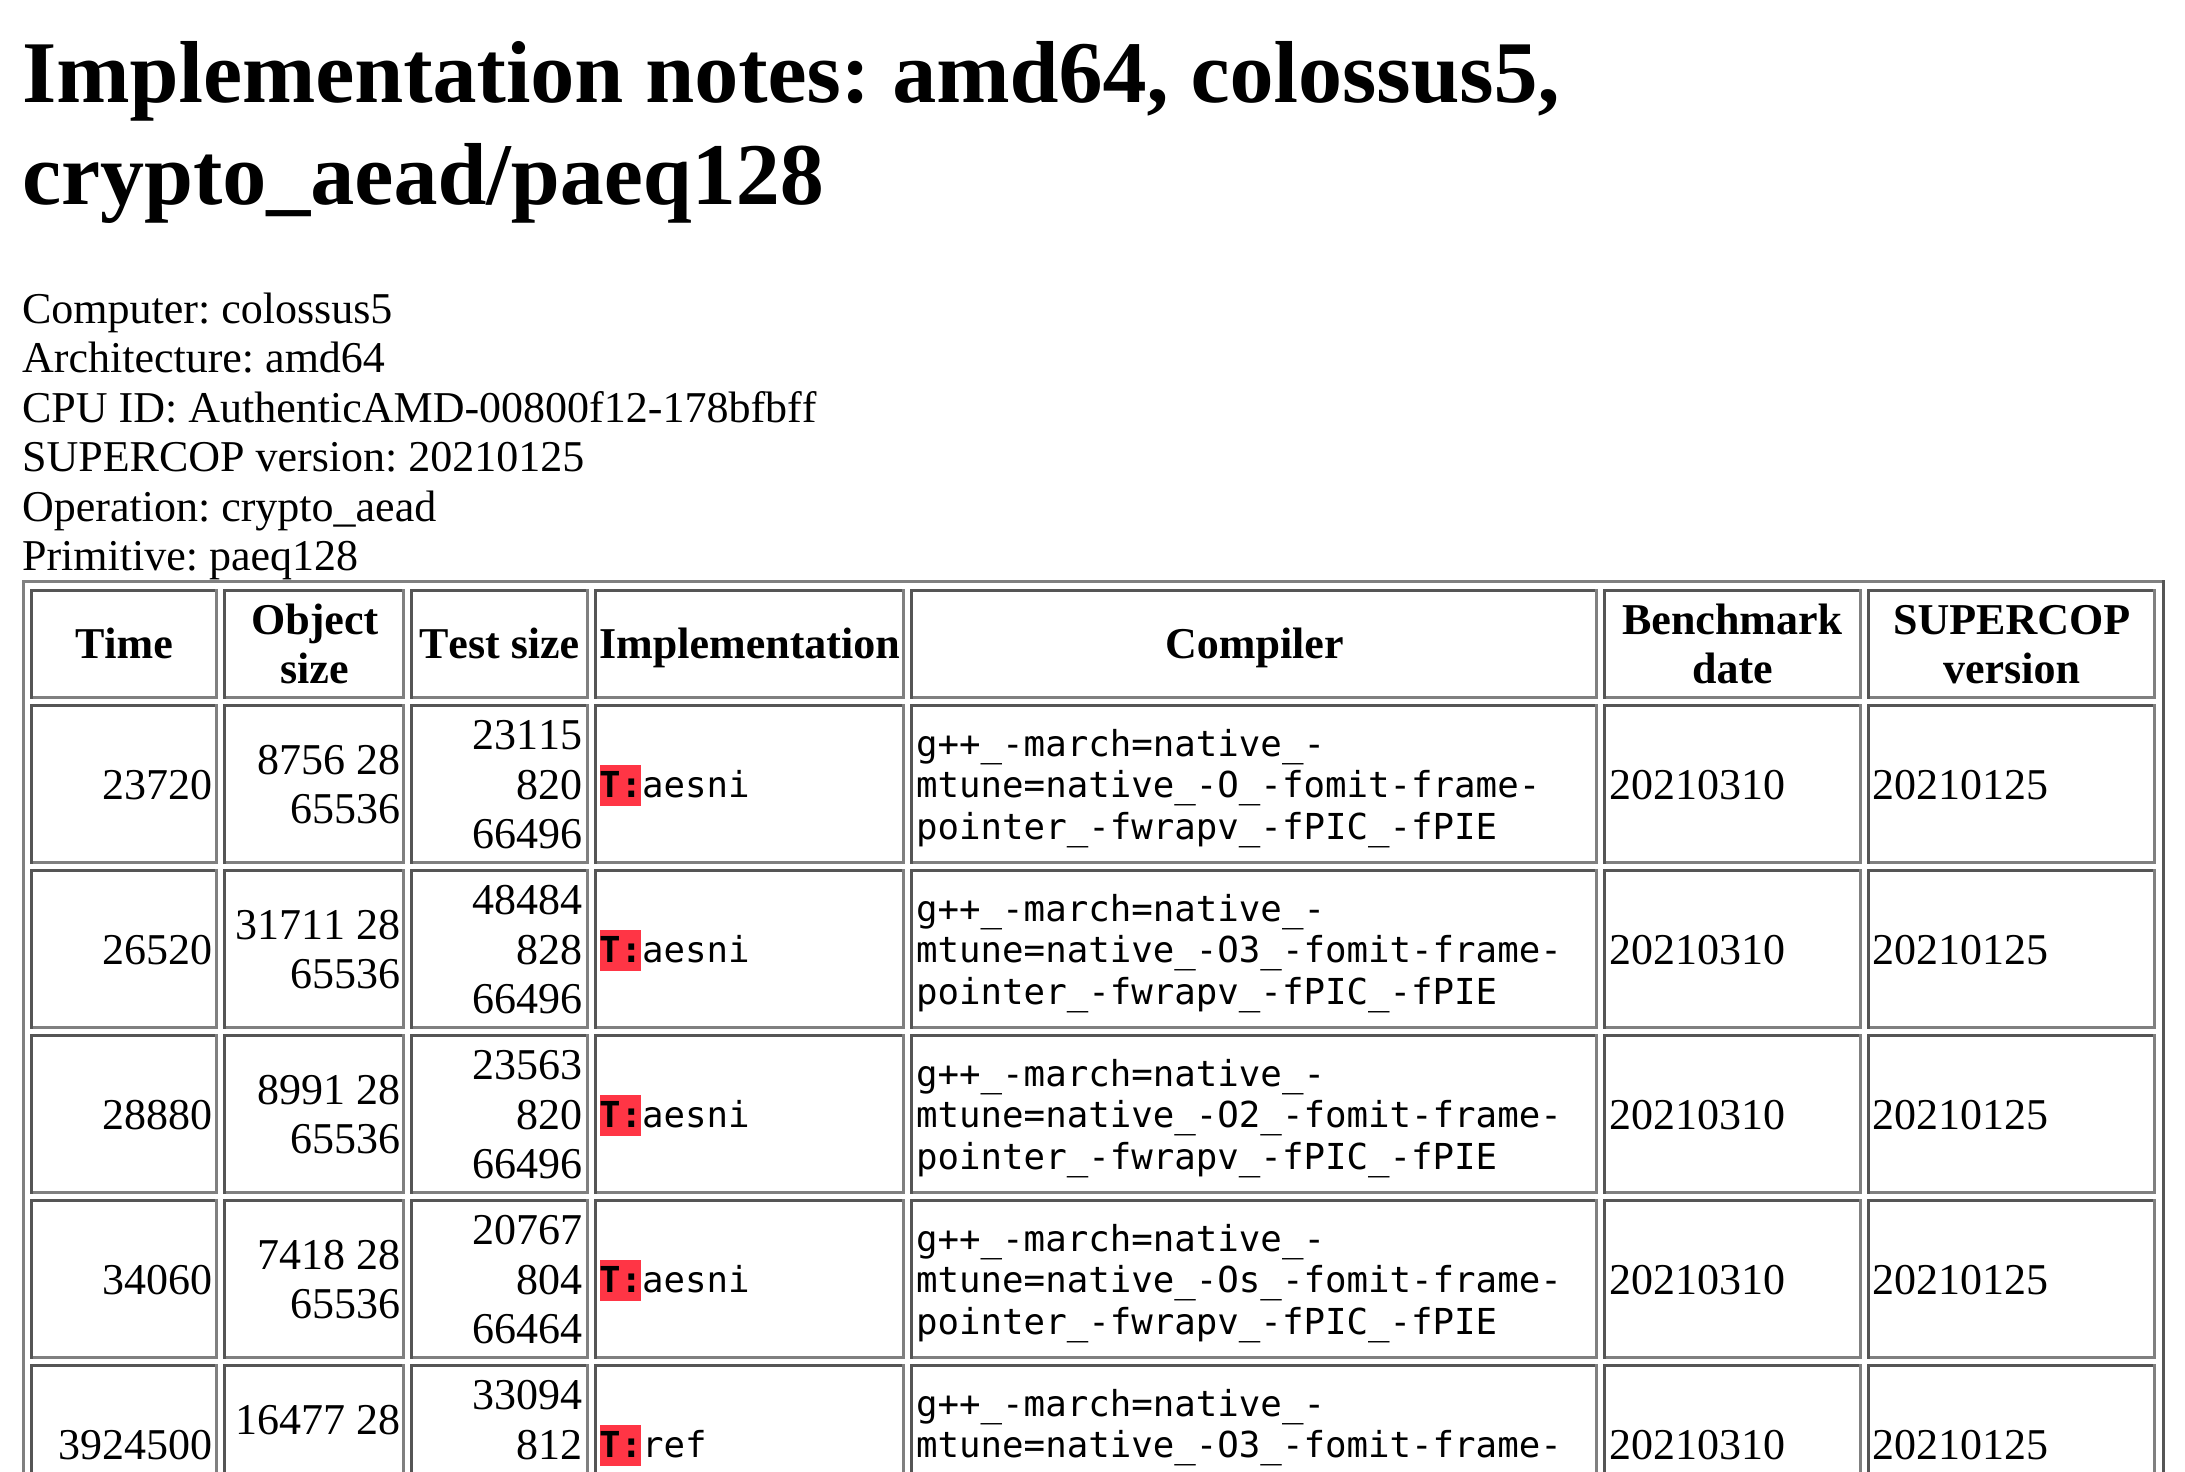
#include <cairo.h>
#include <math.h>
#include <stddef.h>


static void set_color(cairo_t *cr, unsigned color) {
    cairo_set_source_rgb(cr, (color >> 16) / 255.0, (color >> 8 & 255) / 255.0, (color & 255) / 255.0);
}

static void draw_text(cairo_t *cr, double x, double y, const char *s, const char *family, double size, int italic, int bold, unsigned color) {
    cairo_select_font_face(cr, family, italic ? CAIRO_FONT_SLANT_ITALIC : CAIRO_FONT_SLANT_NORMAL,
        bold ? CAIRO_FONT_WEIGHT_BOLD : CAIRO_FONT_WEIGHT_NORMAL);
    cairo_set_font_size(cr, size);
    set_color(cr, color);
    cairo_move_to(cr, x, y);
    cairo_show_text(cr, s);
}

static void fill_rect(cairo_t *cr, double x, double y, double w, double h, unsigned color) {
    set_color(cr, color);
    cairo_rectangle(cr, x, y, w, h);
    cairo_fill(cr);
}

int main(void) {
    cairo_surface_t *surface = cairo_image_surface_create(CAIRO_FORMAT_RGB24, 2185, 1472);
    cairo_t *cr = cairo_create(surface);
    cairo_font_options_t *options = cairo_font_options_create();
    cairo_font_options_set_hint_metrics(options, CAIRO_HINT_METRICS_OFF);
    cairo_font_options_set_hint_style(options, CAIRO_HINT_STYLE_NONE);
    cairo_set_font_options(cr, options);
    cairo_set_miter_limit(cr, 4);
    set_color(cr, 0xFFFFFF);
    cairo_paint(cr);
    draw_text(cr, 22, 102, "Implementation notes: amd64, colossus5,", "Liberation Serif", 88, 0, 1, 0x000000);
    draw_text(cr, 22, 204, "crypto_aead/paeq128", "Liberation Serif", 88, 0, 1, 0x000000);
    draw_text(cr, 22, 323, "Computer: colossus5", "Liberation Serif", 44, 0, 0, 0x000000);
    draw_text(cr, 22, 372, "Architecture: amd64", "Liberation Serif", 44, 0, 0, 0x000000);
    draw_text(cr, 22, 422, "CPU ID: AuthenticAMD-00800f12-178bfbff", "Liberation Serif", 44, 0, 0, 0x000000);
    draw_text(cr, 22, 471, "SUPERCOP version: 20210125", "Liberation Serif", 44, 0, 0, 0x000000);
    draw_text(cr, 22, 521, "Operation: crypto_aead", "Liberation Serif", 44, 0, 0, 0x000000);
    draw_text(cr, 22, 570, "Primitive: paeq128", "Liberation Serif", 44, 0, 0, 0x000000);
    fill_rect(cr, 22, 580, 2142, 3, 0x808080);
    fill_rect(cr, 2162, 580, 3, 892, 0x555555);
    fill_rect(cr, 22, 580, 3, 892, 0x808080);
    fill_rect(cr, 30, 589, 187, 3, 0x555555);
    fill_rect(cr, 215, 589, 3, 110, 0x808080);
    fill_rect(cr, 30, 696, 187, 3, 0x808080);
    fill_rect(cr, 30, 589, 3, 110, 0x555555);
    draw_text(cr, 75, 658, "Time", "Liberation Serif", 44, 0, 1, 0x000000);
    fill_rect(cr, 223, 589, 181, 3, 0x555555);
    fill_rect(cr, 402, 589, 3, 110, 0x808080);
    fill_rect(cr, 223, 696, 181, 3, 0x808080);
    fill_rect(cr, 223, 589, 3, 110, 0x555555);
    draw_text(cr, 251, 634, "Object", "Liberation Serif", 44, 0, 1, 0x000000);
    draw_text(cr, 280, 683, "size", "Liberation Serif", 44, 0, 1, 0x000000);
    fill_rect(cr, 410, 589, 179, 3, 0x555555);
    fill_rect(cr, 586, 589, 3, 110, 0x808080);
    fill_rect(cr, 410, 696, 179, 3, 0x808080);
    fill_rect(cr, 410, 589, 3, 110, 0x555555);
    draw_text(cr, 419, 658, "Test size", "Liberation Serif", 44, 0, 1, 0x000000);
    fill_rect(cr, 594, 589, 311, 3, 0x555555);
    fill_rect(cr, 902, 589, 3, 110, 0x808080);
    fill_rect(cr, 594, 696, 311, 3, 0x808080);
    fill_rect(cr, 594, 589, 3, 110, 0x555555);
    draw_text(cr, 599, 658, "Implementation", "Liberation Serif", 44, 0, 1, 0x000000);
    fill_rect(cr, 910, 589, 688, 3, 0x555555);
    fill_rect(cr, 1595, 589, 3, 110, 0x808080);
    fill_rect(cr, 910, 696, 688, 3, 0x808080);
    fill_rect(cr, 910, 589, 3, 110, 0x555555);
    draw_text(cr, 1165, 658, "Compiler", "Liberation Serif", 44, 0, 1, 0x000000);
    fill_rect(cr, 1603, 589, 259, 3, 0x555555);
    fill_rect(cr, 1859, 589, 3, 110, 0x808080);
    fill_rect(cr, 1603, 696, 259, 3, 0x808080);
    fill_rect(cr, 1603, 589, 3, 110, 0x555555);
    draw_text(cr, 1622, 634, "Benchmark", "Liberation Serif", 44, 0, 1, 0x000000);
    draw_text(cr, 1692, 683, "date", "Liberation Serif", 44, 0, 1, 0x000000);
    fill_rect(cr, 1867, 589, 289, 3, 0x555555);
    fill_rect(cr, 2153, 589, 3, 110, 0x808080);
    fill_rect(cr, 1867, 696, 289, 3, 0x808080);
    fill_rect(cr, 1867, 589, 3, 110, 0x555555);
    draw_text(cr, 1893, 634, "SUPERCOP", "Liberation Serif", 44, 0, 1, 0x000000);
    draw_text(cr, 1943, 683, "version", "Liberation Serif", 44, 0, 1, 0x000000);
    fill_rect(cr, 30, 704, 187, 3, 0x555555);
    fill_rect(cr, 215, 704, 3, 160, 0x808080);
    fill_rect(cr, 30, 861, 187, 3, 0x808080);
    fill_rect(cr, 30, 704, 3, 160, 0x555555);
    draw_text(cr, 102, 799, "23720", "Liberation Serif", 44, 0, 0, 0x000000);
    fill_rect(cr, 223, 704, 181, 3, 0x555555);
    fill_rect(cr, 402, 704, 3, 160, 0x808080);
    fill_rect(cr, 223, 861, 181, 3, 0x808080);
    fill_rect(cr, 223, 704, 3, 160, 0x555555);
    draw_text(cr, 257, 774, "8756 28", "Liberation Serif", 44, 0, 0, 0x000000);
    draw_text(cr, 290, 823, "65536", "Liberation Serif", 44, 0, 0, 0x000000);
    fill_rect(cr, 410, 704, 179, 3, 0x555555);
    fill_rect(cr, 586, 704, 3, 160, 0x808080);
    fill_rect(cr, 410, 861, 179, 3, 0x808080);
    fill_rect(cr, 410, 704, 3, 160, 0x555555);
    draw_text(cr, 472, 749, "23115", "Liberation Serif", 44, 0, 0, 0x000000);
    draw_text(cr, 516, 799, "820", "Liberation Serif", 44, 0, 0, 0x000000);
    draw_text(cr, 472, 848, "66496", "Liberation Serif", 44, 0, 0, 0x000000);
    fill_rect(cr, 594, 704, 311, 3, 0x555555);
    fill_rect(cr, 902, 704, 3, 160, 0x808080);
    fill_rect(cr, 594, 861, 311, 3, 0x808080);
    fill_rect(cr, 594, 704, 3, 160, 0x555555);
    fill_rect(cr, 600, 765, 41, 41, 0xFF3545);
    draw_text(cr, 599, 797, "T:", "DejaVu Sans Mono", 35.75, 0, 1, 0x000000);
    draw_text(cr, 642, 797, "aesni", "DejaVu Sans Mono", 35.75, 0, 0, 0x000000);
    fill_rect(cr, 910, 704, 688, 3, 0x555555);
    fill_rect(cr, 1595, 704, 3, 160, 0x808080);
    fill_rect(cr, 910, 861, 688, 3, 0x808080);
    fill_rect(cr, 910, 704, 3, 160, 0x555555);
    draw_text(cr, 916, 756, "g++_-march=native_-", "DejaVu Sans Mono", 35.75, 0, 0, 0x000000);
    draw_text(cr, 916, 797, "mtune=native_-O_-fomit-frame-", "DejaVu Sans Mono", 35.75, 0, 0, 0x000000);
    draw_text(cr, 916, 839, "pointer_-fwrapv_-fPIC_-fPIE", "DejaVu Sans Mono", 35.75, 0, 0, 0x000000);
    fill_rect(cr, 1603, 704, 259, 3, 0x555555);
    fill_rect(cr, 1859, 704, 3, 160, 0x808080);
    fill_rect(cr, 1603, 861, 259, 3, 0x808080);
    fill_rect(cr, 1603, 704, 3, 160, 0x555555);
    draw_text(cr, 1609, 799, "20210310", "Liberation Serif", 44, 0, 0, 0x000000);
    fill_rect(cr, 1867, 704, 289, 3, 0x555555);
    fill_rect(cr, 2153, 704, 3, 160, 0x808080);
    fill_rect(cr, 1867, 861, 289, 3, 0x808080);
    fill_rect(cr, 1867, 704, 3, 160, 0x555555);
    draw_text(cr, 1872, 799, "20210125", "Liberation Serif", 44, 0, 0, 0x000000);
    fill_rect(cr, 30, 869, 187, 3, 0x555555);
    fill_rect(cr, 215, 869, 3, 160, 0x808080);
    fill_rect(cr, 30, 1026, 187, 3, 0x808080);
    fill_rect(cr, 30, 869, 3, 160, 0x555555);
    draw_text(cr, 102, 964, "26520", "Liberation Serif", 44, 0, 0, 0x000000);
    fill_rect(cr, 223, 869, 181, 3, 0x555555);
    fill_rect(cr, 402, 869, 3, 160, 0x808080);
    fill_rect(cr, 223, 1026, 181, 3, 0x808080);
    fill_rect(cr, 223, 869, 3, 160, 0x555555);
    draw_text(cr, 235, 939, "31711 28", "Liberation Serif", 44, 0, 0, 0x000000);
    draw_text(cr, 290, 988, "65536", "Liberation Serif", 44, 0, 0, 0x000000);
    fill_rect(cr, 410, 869, 179, 3, 0x555555);
    fill_rect(cr, 586, 869, 3, 160, 0x808080);
    fill_rect(cr, 410, 1026, 179, 3, 0x808080);
    fill_rect(cr, 410, 869, 3, 160, 0x555555);
    draw_text(cr, 472, 914, "48484", "Liberation Serif", 44, 0, 0, 0x000000);
    draw_text(cr, 516, 964, "828", "Liberation Serif", 44, 0, 0, 0x000000);
    draw_text(cr, 472, 1013, "66496", "Liberation Serif", 44, 0, 0, 0x000000);
    fill_rect(cr, 594, 869, 311, 3, 0x555555);
    fill_rect(cr, 902, 869, 3, 160, 0x808080);
    fill_rect(cr, 594, 1026, 311, 3, 0x808080);
    fill_rect(cr, 594, 869, 3, 160, 0x555555);
    fill_rect(cr, 600, 930, 41, 41, 0xFF3545);
    draw_text(cr, 599, 962, "T:", "DejaVu Sans Mono", 35.75, 0, 1, 0x000000);
    draw_text(cr, 642, 962, "aesni", "DejaVu Sans Mono", 35.75, 0, 0, 0x000000);
    fill_rect(cr, 910, 869, 688, 3, 0x555555);
    fill_rect(cr, 1595, 869, 3, 160, 0x808080);
    fill_rect(cr, 910, 1026, 688, 3, 0x808080);
    fill_rect(cr, 910, 869, 3, 160, 0x555555);
    draw_text(cr, 916, 921, "g++_-march=native_-", "DejaVu Sans Mono", 35.75, 0, 0, 0x000000);
    draw_text(cr, 916, 962, "mtune=native_-O3_-fomit-frame-", "DejaVu Sans Mono", 35.75, 0, 0, 0x000000);
    draw_text(cr, 916, 1004, "pointer_-fwrapv_-fPIC_-fPIE", "DejaVu Sans Mono", 35.75, 0, 0, 0x000000);
    fill_rect(cr, 1603, 869, 259, 3, 0x555555);
    fill_rect(cr, 1859, 869, 3, 160, 0x808080);
    fill_rect(cr, 1603, 1026, 259, 3, 0x808080);
    fill_rect(cr, 1603, 869, 3, 160, 0x555555);
    draw_text(cr, 1609, 964, "20210310", "Liberation Serif", 44, 0, 0, 0x000000);
    fill_rect(cr, 1867, 869, 289, 3, 0x555555);
    fill_rect(cr, 2153, 869, 3, 160, 0x808080);
    fill_rect(cr, 1867, 1026, 289, 3, 0x808080);
    fill_rect(cr, 1867, 869, 3, 160, 0x555555);
    draw_text(cr, 1872, 964, "20210125", "Liberation Serif", 44, 0, 0, 0x000000);
    fill_rect(cr, 30, 1034, 187, 3, 0x555555);
    fill_rect(cr, 215, 1034, 3, 160, 0x808080);
    fill_rect(cr, 30, 1191, 187, 3, 0x808080);
    fill_rect(cr, 30, 1034, 3, 160, 0x555555);
    draw_text(cr, 102, 1129, "28880", "Liberation Serif", 44, 0, 0, 0x000000);
    fill_rect(cr, 223, 1034, 181, 3, 0x555555);
    fill_rect(cr, 402, 1034, 3, 160, 0x808080);
    fill_rect(cr, 223, 1191, 181, 3, 0x808080);
    fill_rect(cr, 223, 1034, 3, 160, 0x555555);
    draw_text(cr, 257, 1104, "8991 28", "Liberation Serif", 44, 0, 0, 0x000000);
    draw_text(cr, 290, 1153, "65536", "Liberation Serif", 44, 0, 0, 0x000000);
    fill_rect(cr, 410, 1034, 179, 3, 0x555555);
    fill_rect(cr, 586, 1034, 3, 160, 0x808080);
    fill_rect(cr, 410, 1191, 179, 3, 0x808080);
    fill_rect(cr, 410, 1034, 3, 160, 0x555555);
    draw_text(cr, 472, 1079, "23563", "Liberation Serif", 44, 0, 0, 0x000000);
    draw_text(cr, 516, 1129, "820", "Liberation Serif", 44, 0, 0, 0x000000);
    draw_text(cr, 472, 1178, "66496", "Liberation Serif", 44, 0, 0, 0x000000);
    fill_rect(cr, 594, 1034, 311, 3, 0x555555);
    fill_rect(cr, 902, 1034, 3, 160, 0x808080);
    fill_rect(cr, 594, 1191, 311, 3, 0x808080);
    fill_rect(cr, 594, 1034, 3, 160, 0x555555);
    fill_rect(cr, 600, 1095, 41, 41, 0xFF3545);
    draw_text(cr, 599, 1127, "T:", "DejaVu Sans Mono", 35.75, 0, 1, 0x000000);
    draw_text(cr, 642, 1127, "aesni", "DejaVu Sans Mono", 35.75, 0, 0, 0x000000);
    fill_rect(cr, 910, 1034, 688, 3, 0x555555);
    fill_rect(cr, 1595, 1034, 3, 160, 0x808080);
    fill_rect(cr, 910, 1191, 688, 3, 0x808080);
    fill_rect(cr, 910, 1034, 3, 160, 0x555555);
    draw_text(cr, 916, 1086, "g++_-march=native_-", "DejaVu Sans Mono", 35.75, 0, 0, 0x000000);
    draw_text(cr, 916, 1127, "mtune=native_-O2_-fomit-frame-", "DejaVu Sans Mono", 35.75, 0, 0, 0x000000);
    draw_text(cr, 916, 1169, "pointer_-fwrapv_-fPIC_-fPIE", "DejaVu Sans Mono", 35.75, 0, 0, 0x000000);
    fill_rect(cr, 1603, 1034, 259, 3, 0x555555);
    fill_rect(cr, 1859, 1034, 3, 160, 0x808080);
    fill_rect(cr, 1603, 1191, 259, 3, 0x808080);
    fill_rect(cr, 1603, 1034, 3, 160, 0x555555);
    draw_text(cr, 1609, 1129, "20210310", "Liberation Serif", 44, 0, 0, 0x000000);
    fill_rect(cr, 1867, 1034, 289, 3, 0x555555);
    fill_rect(cr, 2153, 1034, 3, 160, 0x808080);
    fill_rect(cr, 1867, 1191, 289, 3, 0x808080);
    fill_rect(cr, 1867, 1034, 3, 160, 0x555555);
    draw_text(cr, 1872, 1129, "20210125", "Liberation Serif", 44, 0, 0, 0x000000);
    fill_rect(cr, 30, 1199, 187, 3, 0x555555);
    fill_rect(cr, 215, 1199, 3, 160, 0x808080);
    fill_rect(cr, 30, 1356, 187, 3, 0x808080);
    fill_rect(cr, 30, 1199, 3, 160, 0x555555);
    draw_text(cr, 102, 1294, "34060", "Liberation Serif", 44, 0, 0, 0x000000);
    fill_rect(cr, 223, 1199, 181, 3, 0x555555);
    fill_rect(cr, 402, 1199, 3, 160, 0x808080);
    fill_rect(cr, 223, 1356, 181, 3, 0x808080);
    fill_rect(cr, 223, 1199, 3, 160, 0x555555);
    draw_text(cr, 257, 1269, "7418 28", "Liberation Serif", 44, 0, 0, 0x000000);
    draw_text(cr, 290, 1318, "65536", "Liberation Serif", 44, 0, 0, 0x000000);
    fill_rect(cr, 410, 1199, 179, 3, 0x555555);
    fill_rect(cr, 586, 1199, 3, 160, 0x808080);
    fill_rect(cr, 410, 1356, 179, 3, 0x808080);
    fill_rect(cr, 410, 1199, 3, 160, 0x555555);
    draw_text(cr, 472, 1244, "20767", "Liberation Serif", 44, 0, 0, 0x000000);
    draw_text(cr, 516, 1294, "804", "Liberation Serif", 44, 0, 0, 0x000000);
    draw_text(cr, 472, 1343, "66464", "Liberation Serif", 44, 0, 0, 0x000000);
    fill_rect(cr, 594, 1199, 311, 3, 0x555555);
    fill_rect(cr, 902, 1199, 3, 160, 0x808080);
    fill_rect(cr, 594, 1356, 311, 3, 0x808080);
    fill_rect(cr, 594, 1199, 3, 160, 0x555555);
    fill_rect(cr, 600, 1260, 41, 41, 0xFF3545);
    draw_text(cr, 599, 1292, "T:", "DejaVu Sans Mono", 35.75, 0, 1, 0x000000);
    draw_text(cr, 642, 1292, "aesni", "DejaVu Sans Mono", 35.75, 0, 0, 0x000000);
    fill_rect(cr, 910, 1199, 688, 3, 0x555555);
    fill_rect(cr, 1595, 1199, 3, 160, 0x808080);
    fill_rect(cr, 910, 1356, 688, 3, 0x808080);
    fill_rect(cr, 910, 1199, 3, 160, 0x555555);
    draw_text(cr, 916, 1251, "g++_-march=native_-", "DejaVu Sans Mono", 35.75, 0, 0, 0x000000);
    draw_text(cr, 916, 1292, "mtune=native_-Os_-fomit-frame-", "DejaVu Sans Mono", 35.75, 0, 0, 0x000000);
    draw_text(cr, 916, 1334, "pointer_-fwrapv_-fPIC_-fPIE", "DejaVu Sans Mono", 35.75, 0, 0, 0x000000);
    fill_rect(cr, 1603, 1199, 259, 3, 0x555555);
    fill_rect(cr, 1859, 1199, 3, 160, 0x808080);
    fill_rect(cr, 1603, 1356, 259, 3, 0x808080);
    fill_rect(cr, 1603, 1199, 3, 160, 0x555555);
    draw_text(cr, 1609, 1294, "20210310", "Liberation Serif", 44, 0, 0, 0x000000);
    fill_rect(cr, 1867, 1199, 289, 3, 0x555555);
    fill_rect(cr, 2153, 1199, 3, 160, 0x808080);
    fill_rect(cr, 1867, 1356, 289, 3, 0x808080);
    fill_rect(cr, 1867, 1199, 3, 160, 0x555555);
    draw_text(cr, 1872, 1294, "20210125", "Liberation Serif", 44, 0, 0, 0x000000);
    fill_rect(cr, 223, 1364, 181, 3, 0x555555);
    fill_rect(cr, 402, 1364, 3, 108, 0x808080);
    fill_rect(cr, 223, 1364, 3, 108, 0x555555);
    draw_text(cr, 235, 1434, "16477 28", "Liberation Serif", 44, 0, 0, 0x000000);
    fill_rect(cr, 410, 1364, 179, 3, 0x555555);
    fill_rect(cr, 586, 1364, 3, 108, 0x808080);
    fill_rect(cr, 410, 1364, 3, 108, 0x555555);
    draw_text(cr, 472, 1409, "33094", "Liberation Serif", 44, 0, 0, 0x000000);
    draw_text(cr, 516, 1459, "812", "Liberation Serif", 44, 0, 0, 0x000000);
    fill_rect(cr, 910, 1364, 688, 3, 0x555555);
    fill_rect(cr, 1595, 1364, 3, 108, 0x808080);
    fill_rect(cr, 910, 1364, 3, 108, 0x555555);
    draw_text(cr, 916, 1416, "g++_-march=native_-", "DejaVu Sans Mono", 35.75, 0, 0, 0x000000);
    draw_text(cr, 916, 1457, "mtune=native_-O3_-fomit-frame-", "DejaVu Sans Mono", 35.75, 0, 0, 0x000000);
    fill_rect(cr, 30, 1364, 187, 3, 0x555555);
    fill_rect(cr, 215, 1364, 3, 108, 0x808080);
    fill_rect(cr, 30, 1364, 3, 108, 0x555555);
    draw_text(cr, 58, 1459, "3924500", "Liberation Serif", 44, 0, 0, 0x000000);
    fill_rect(cr, 594, 1364, 311, 3, 0x555555);
    fill_rect(cr, 902, 1364, 3, 108, 0x808080);
    fill_rect(cr, 594, 1364, 3, 108, 0x555555);
    fill_rect(cr, 600, 1425, 41, 41, 0xFF3545);
    draw_text(cr, 599, 1457, "T:", "DejaVu Sans Mono", 35.75, 0, 1, 0x000000);
    draw_text(cr, 642, 1457, "ref", "DejaVu Sans Mono", 35.75, 0, 0, 0x000000);
    fill_rect(cr, 1603, 1364, 259, 3, 0x555555);
    fill_rect(cr, 1859, 1364, 3, 108, 0x808080);
    fill_rect(cr, 1603, 1364, 3, 108, 0x555555);
    draw_text(cr, 1609, 1459, "20210310", "Liberation Serif", 44, 0, 0, 0x000000);
    fill_rect(cr, 1867, 1364, 289, 3, 0x555555);
    fill_rect(cr, 2153, 1364, 3, 108, 0x808080);
    fill_rect(cr, 1867, 1364, 3, 108, 0x555555);
    draw_text(cr, 1872, 1459, "20210125", "Liberation Serif", 44, 0, 0, 0x000000);
    cairo_surface_write_to_png(surface, "output.png");
    cairo_font_options_destroy(options);
    cairo_destroy(cr);
    cairo_surface_destroy(surface);
    return 0;
}
